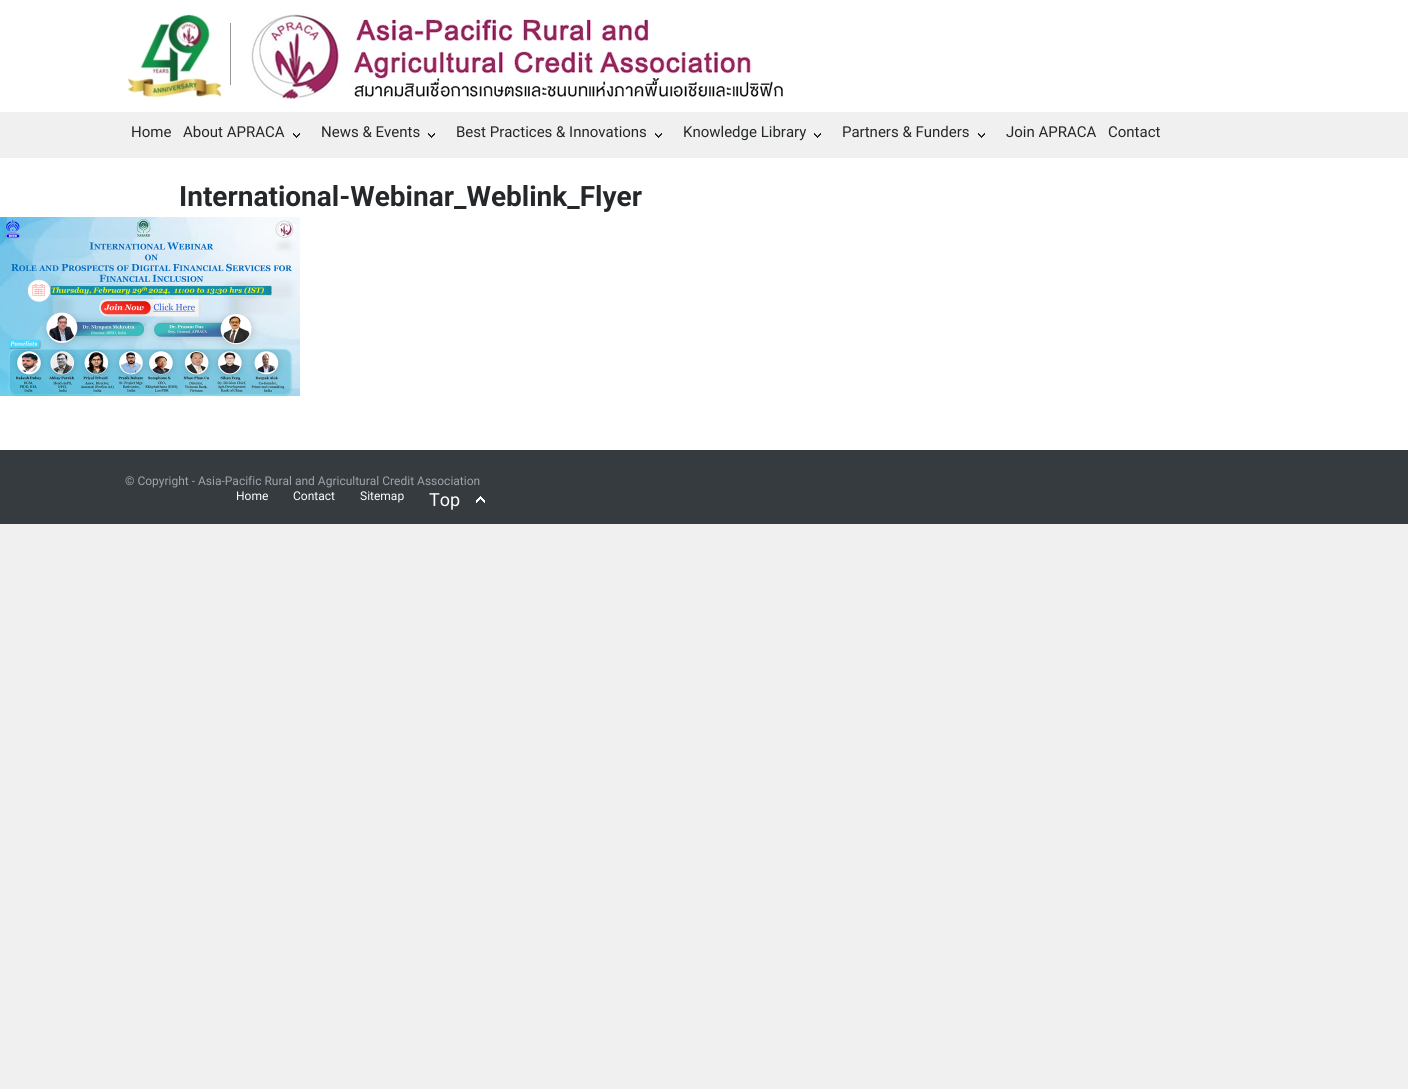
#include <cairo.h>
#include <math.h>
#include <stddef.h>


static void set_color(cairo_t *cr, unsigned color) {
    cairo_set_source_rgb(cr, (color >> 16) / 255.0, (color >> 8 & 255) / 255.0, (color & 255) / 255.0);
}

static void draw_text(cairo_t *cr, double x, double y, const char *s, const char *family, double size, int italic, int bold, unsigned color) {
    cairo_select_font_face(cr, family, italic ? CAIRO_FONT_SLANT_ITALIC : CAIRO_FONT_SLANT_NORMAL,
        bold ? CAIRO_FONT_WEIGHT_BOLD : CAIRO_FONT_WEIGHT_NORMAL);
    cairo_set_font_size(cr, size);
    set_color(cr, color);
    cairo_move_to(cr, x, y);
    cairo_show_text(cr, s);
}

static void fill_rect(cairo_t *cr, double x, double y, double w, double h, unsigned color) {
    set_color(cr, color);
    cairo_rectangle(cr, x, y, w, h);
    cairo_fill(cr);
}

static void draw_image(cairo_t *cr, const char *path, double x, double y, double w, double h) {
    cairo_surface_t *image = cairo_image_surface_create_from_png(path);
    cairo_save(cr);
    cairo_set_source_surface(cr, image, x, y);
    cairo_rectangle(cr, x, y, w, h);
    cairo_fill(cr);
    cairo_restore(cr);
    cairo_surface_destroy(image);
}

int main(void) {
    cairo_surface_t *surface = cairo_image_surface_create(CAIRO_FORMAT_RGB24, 1408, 1089);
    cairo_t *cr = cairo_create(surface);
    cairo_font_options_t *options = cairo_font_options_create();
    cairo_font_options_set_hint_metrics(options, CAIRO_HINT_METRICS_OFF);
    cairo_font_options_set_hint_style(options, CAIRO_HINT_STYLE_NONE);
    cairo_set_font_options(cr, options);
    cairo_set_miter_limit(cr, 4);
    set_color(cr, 0xF0F0F0);
    cairo_paint(cr);
    fill_rect(cr, 0, 0, 1408, 450, 0xFFFFFF);
    draw_image(cr, "assets/img1.png", 127, 13, 656, 86);
    fill_rect(cr, 0, 112, 1408, 46, 0xF0F0F0);
    draw_text(cr, 131, 137, "Home", "Roboto", 15, 0, 0, 0x25282A);
    draw_image(cr, "assets/img2.png", 293, 133, 7, 5);
    draw_text(cr, 183, 137, "About APRACA", "Roboto", 15, 0, 0, 0x25282A);
    draw_image(cr, "assets/img2.png", 428, 133, 7, 5);
    draw_text(cr, 321, 137, "News & Events", "Roboto", 15, 0, 0, 0x25282A);
    draw_image(cr, "assets/img2.png", 655, 133, 7, 5);
    draw_text(cr, 456, 137, "Best Practices & Innovations", "Roboto", 15, 0, 0, 0x25282A);
    draw_image(cr, "assets/img2.png", 814, 133, 7, 5);
    draw_text(cr, 683, 137, "Knowledge Library", "Roboto", 15, 0, 0, 0x25282A);
    draw_image(cr, "assets/img2.png", 978, 133, 7, 5);
    draw_text(cr, 842, 137, "Partners & Funders", "Roboto", 15, 0, 0, 0x25282A);
    draw_text(cr, 1006, 137, "Join APRACA", "Roboto", 15, 0, 0, 0x25282A);
    draw_text(cr, 1108, 137, "Contact", "Roboto", 15, 0, 0, 0x25282A);
    draw_text(cr, 179, 206, "International-Webinar_Weblink_Flyer", "Roboto", 28, 0, 1, 0x25282A);
    draw_image(cr, "assets/img3.png", 0, 217, 300, 179);
    fill_rect(cr, 0, 450, 1408, 74, 0x363B40);
    draw_text(cr, 125, 485, "© Copyright - Asia-Pacific Rural and Agricultural Credit Association", "Roboto", 12, 0, 0, 0x9DA4AB);
    draw_text(cr, 236, 500, "Home", "Roboto", 12, 0, 0, 0xFFFFFF);
    draw_text(cr, 293, 500, "Contact", "Roboto", 12, 0, 0, 0xFFFFFF);
    draw_text(cr, 360, 500, "Sitemap", "Roboto", 12, 0, 0, 0xFFFFFF);
    draw_image(cr, "assets/img4.png", 476, 496, 9, 7);
    draw_text(cr, 429, 506, "Top", "Roboto", 18, 0, 0, 0xFFFFFF);
    cairo_surface_write_to_png(surface, "output.png");
    cairo_font_options_destroy(options);
    cairo_destroy(cr);
    cairo_surface_destroy(surface);
    return 0;
}
